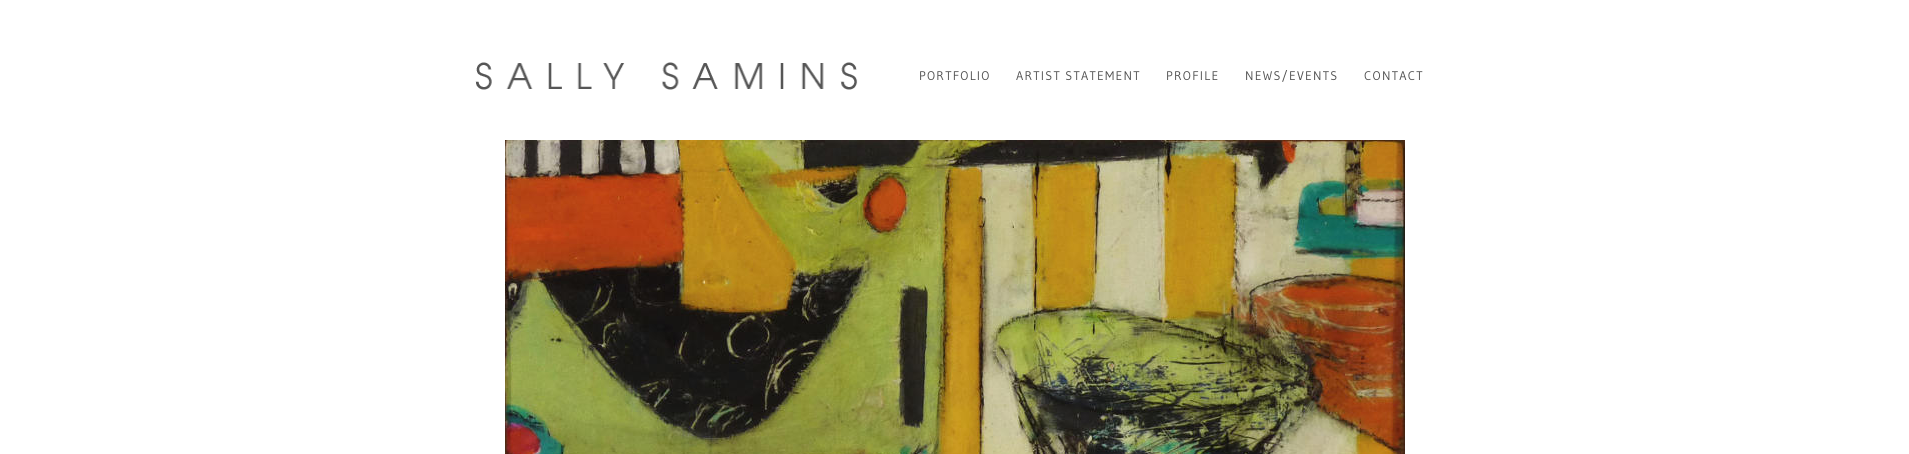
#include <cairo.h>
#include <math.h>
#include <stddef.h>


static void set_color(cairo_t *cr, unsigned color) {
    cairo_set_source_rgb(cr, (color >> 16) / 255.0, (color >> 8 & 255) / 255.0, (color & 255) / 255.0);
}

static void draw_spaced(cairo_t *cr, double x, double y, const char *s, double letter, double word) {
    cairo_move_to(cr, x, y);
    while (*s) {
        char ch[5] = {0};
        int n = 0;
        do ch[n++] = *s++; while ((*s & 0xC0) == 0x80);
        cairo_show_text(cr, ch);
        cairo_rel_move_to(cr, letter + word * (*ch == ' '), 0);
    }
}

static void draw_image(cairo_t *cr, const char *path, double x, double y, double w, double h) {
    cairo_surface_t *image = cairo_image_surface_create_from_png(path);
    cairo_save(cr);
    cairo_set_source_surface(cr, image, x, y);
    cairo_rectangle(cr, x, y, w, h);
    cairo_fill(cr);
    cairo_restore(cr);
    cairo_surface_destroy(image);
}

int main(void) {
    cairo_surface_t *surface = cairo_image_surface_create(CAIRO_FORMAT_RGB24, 1909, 454);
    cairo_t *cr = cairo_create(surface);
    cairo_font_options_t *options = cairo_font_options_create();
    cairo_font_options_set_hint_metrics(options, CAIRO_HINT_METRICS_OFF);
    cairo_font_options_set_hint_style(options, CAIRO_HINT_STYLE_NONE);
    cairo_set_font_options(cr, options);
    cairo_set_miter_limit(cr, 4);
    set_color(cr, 0xFFFFFF);
    cairo_paint(cr);
    draw_image(cr, "assets/img1.png", 475, 62, 383, 28);
    cairo_select_font_face(cr, "Gudea", CAIRO_FONT_SLANT_NORMAL, CAIRO_FONT_WEIGHT_NORMAL);
    cairo_set_font_size(cr, 12.5);
    set_color(cr, 0x505050);
    draw_spaced(cr, 919, 80, "PORTFOLIO", 1.25, 0);
    draw_spaced(cr, 1016, 80, "ARTIST STATEMENT", 1.25, 0);
    draw_spaced(cr, 1166, 80, "PROFILE", 1.25, 0);
    draw_spaced(cr, 1245, 80, "NEWS/EVENTS", 1.25, 0);
    draw_spaced(cr, 1364, 80, "CONTACT", 1.25, 0);
    draw_image(cr, "assets/img2.png", 505, 140, 900, 314);
    cairo_surface_write_to_png(surface, "output.png");
    cairo_font_options_destroy(options);
    cairo_destroy(cr);
    cairo_surface_destroy(surface);
    return 0;
}
